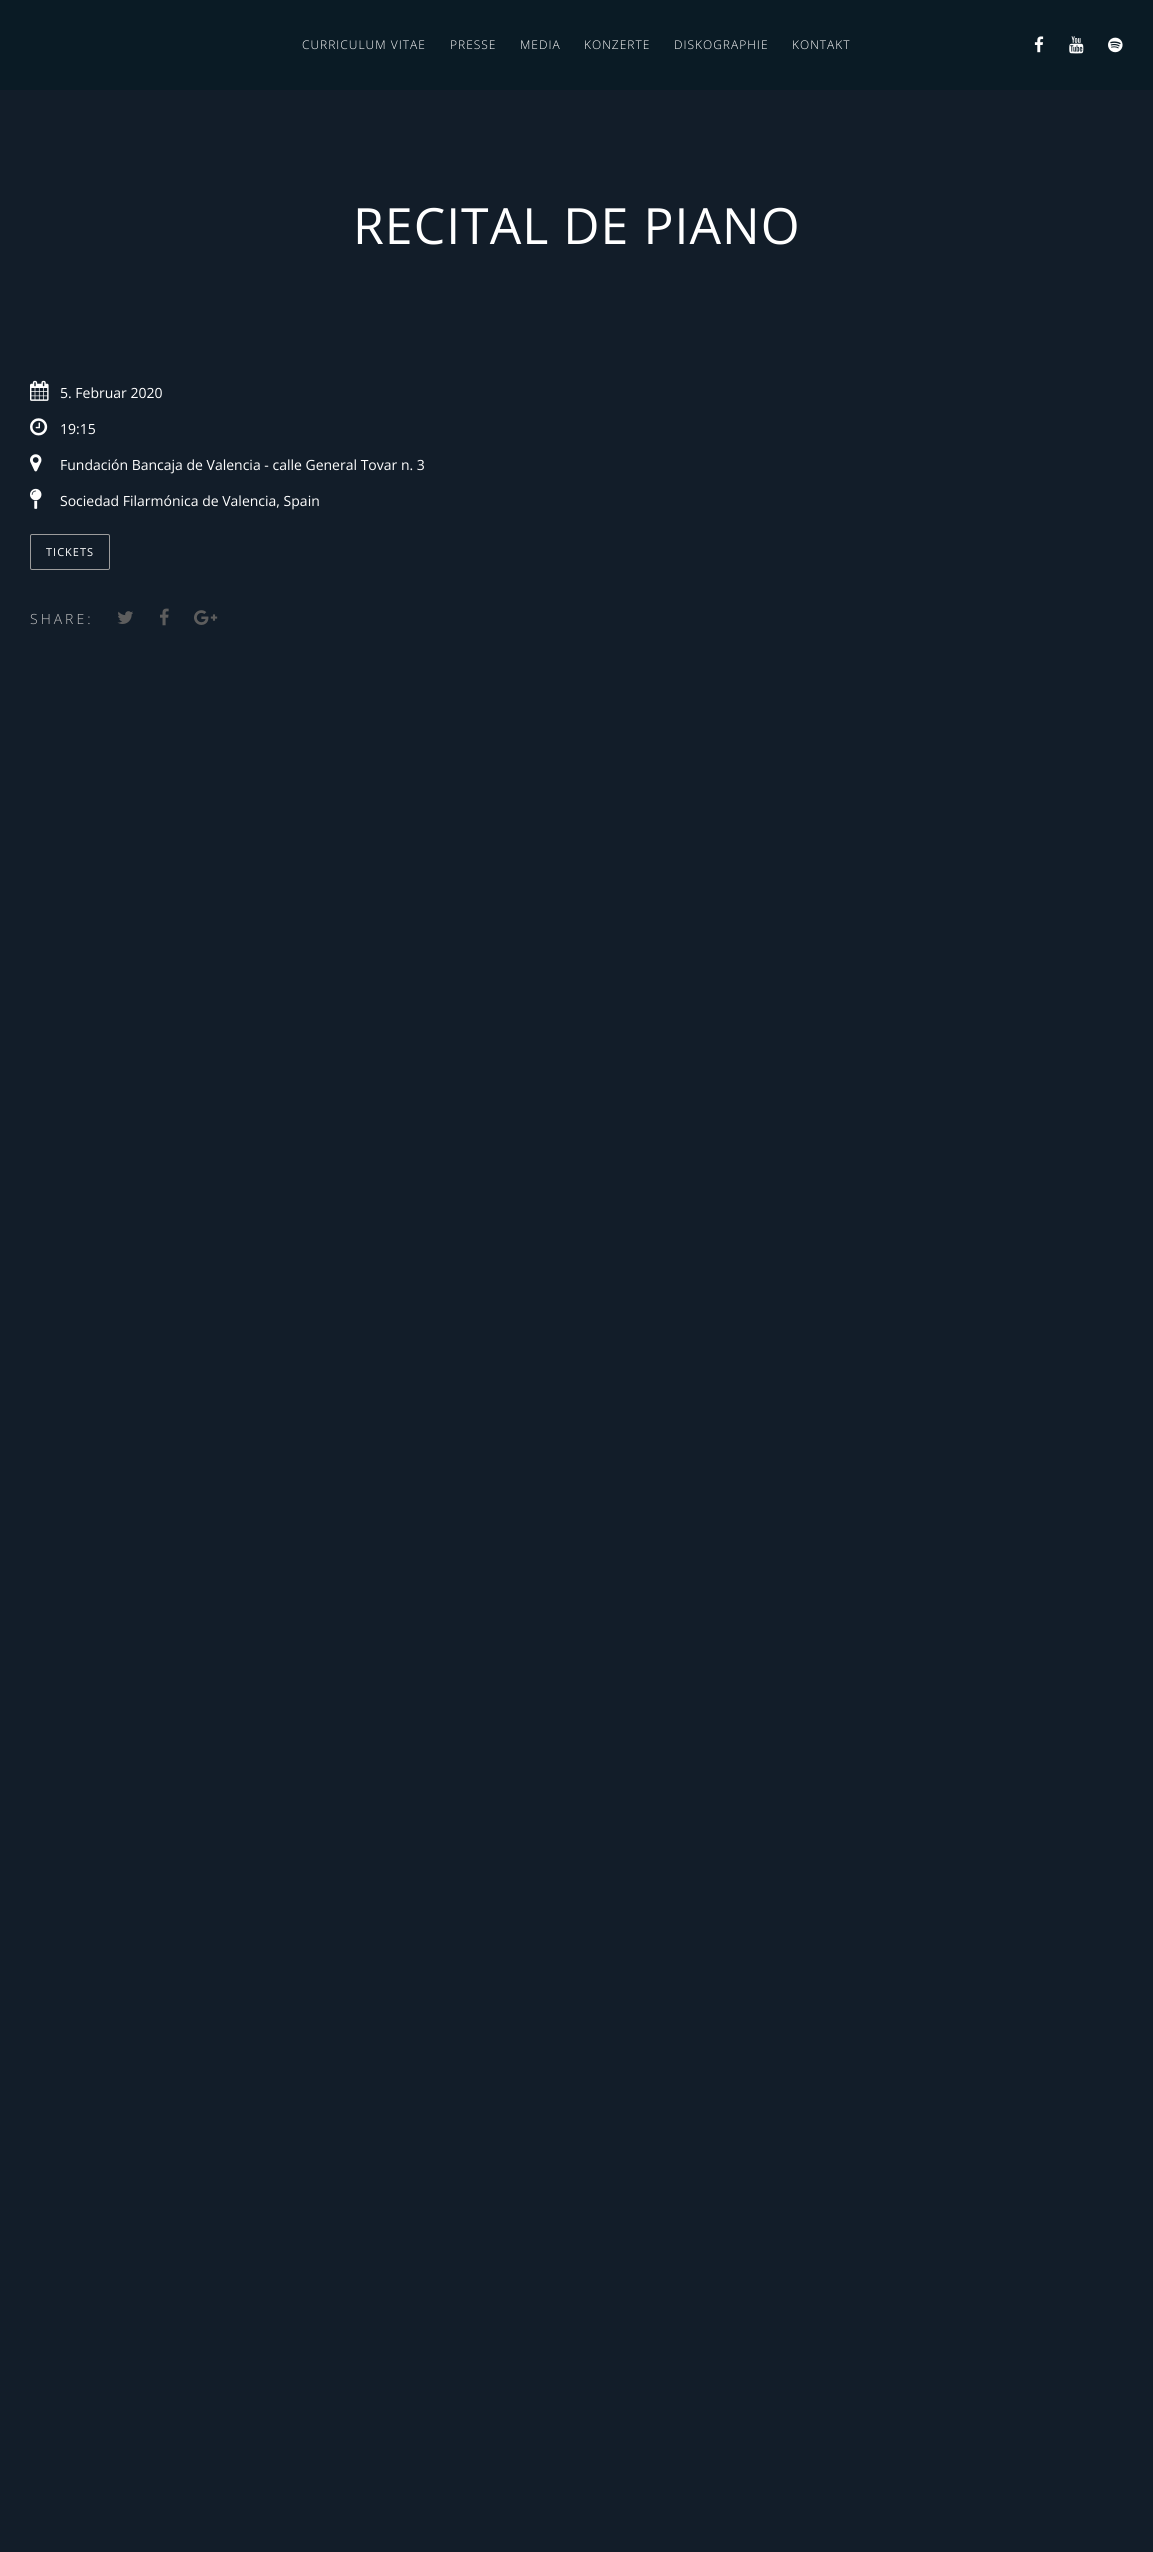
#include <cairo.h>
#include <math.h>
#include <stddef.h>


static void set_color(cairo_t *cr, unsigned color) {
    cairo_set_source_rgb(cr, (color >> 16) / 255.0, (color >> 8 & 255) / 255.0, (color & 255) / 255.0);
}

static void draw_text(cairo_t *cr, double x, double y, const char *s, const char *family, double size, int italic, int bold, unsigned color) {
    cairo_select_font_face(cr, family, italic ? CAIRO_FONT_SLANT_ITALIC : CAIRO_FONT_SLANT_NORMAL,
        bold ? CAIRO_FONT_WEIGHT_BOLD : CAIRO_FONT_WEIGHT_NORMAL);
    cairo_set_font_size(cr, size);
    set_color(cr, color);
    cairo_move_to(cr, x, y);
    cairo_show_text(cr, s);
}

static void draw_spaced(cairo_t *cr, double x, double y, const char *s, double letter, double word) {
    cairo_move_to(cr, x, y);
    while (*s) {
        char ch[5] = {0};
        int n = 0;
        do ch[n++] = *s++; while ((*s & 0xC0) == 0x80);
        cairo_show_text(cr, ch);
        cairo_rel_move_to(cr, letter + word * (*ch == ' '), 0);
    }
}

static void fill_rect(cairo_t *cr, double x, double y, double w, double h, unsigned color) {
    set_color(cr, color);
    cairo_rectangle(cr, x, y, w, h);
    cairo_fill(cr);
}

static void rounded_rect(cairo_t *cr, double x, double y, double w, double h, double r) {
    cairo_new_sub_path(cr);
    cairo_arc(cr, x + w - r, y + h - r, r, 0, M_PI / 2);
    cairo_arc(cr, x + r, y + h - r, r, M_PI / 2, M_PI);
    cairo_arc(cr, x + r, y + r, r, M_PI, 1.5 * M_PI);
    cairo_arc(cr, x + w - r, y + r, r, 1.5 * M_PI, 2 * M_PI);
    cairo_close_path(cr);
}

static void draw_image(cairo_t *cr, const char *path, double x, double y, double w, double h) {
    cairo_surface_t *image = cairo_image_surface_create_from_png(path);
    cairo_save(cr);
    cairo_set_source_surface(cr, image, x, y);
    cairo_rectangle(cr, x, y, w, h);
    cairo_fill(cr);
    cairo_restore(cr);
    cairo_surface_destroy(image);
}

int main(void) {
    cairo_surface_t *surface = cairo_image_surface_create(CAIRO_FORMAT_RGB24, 1153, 2552);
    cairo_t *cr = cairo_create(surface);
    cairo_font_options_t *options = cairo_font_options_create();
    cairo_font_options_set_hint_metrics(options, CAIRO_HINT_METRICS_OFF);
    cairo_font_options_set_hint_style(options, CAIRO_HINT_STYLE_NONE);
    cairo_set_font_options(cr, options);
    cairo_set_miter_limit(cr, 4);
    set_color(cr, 0x121D29);
    cairo_paint(cr);
    fill_rect(cr, 0, 0, 1153, 90, 0x0A1B25);
    cairo_select_font_face(cr, "Open Sans Light", CAIRO_FONT_SLANT_NORMAL, CAIRO_FONT_WEIGHT_NORMAL);
    cairo_set_font_size(cr, 12);
    set_color(cr, 0xFFFFFF);
    draw_spaced(cr, 302, 49, "CURRICULUM VITAE", 1, 0);
    draw_spaced(cr, 450, 49, "PRESSE", 1, 0);
    draw_spaced(cr, 520, 49, "MEDIA", 1, 0);
    draw_spaced(cr, 584, 49, "KONZERTE", 1, 0);
    draw_spaced(cr, 674, 49, "DISKOGRAPHIE", 1, 0);
    draw_spaced(cr, 792, 49, "KONTAKT", 1, 0);
    draw_image(cr, "assets/img1.png", 1034, 36, 10, 17);
    draw_image(cr, "assets/img2.png", 1069, 36, 15, 18);
    draw_image(cr, "assets/img3.png", 1108, 37, 15, 16);
    cairo_select_font_face(cr, "Open Sans", CAIRO_FONT_SLANT_NORMAL, CAIRO_FONT_WEIGHT_NORMAL);
    cairo_set_font_size(cr, 50);
    draw_spaced(cr, 353, 244, "RECITAL DE PIANO", 1, 0);
    draw_image(cr, "assets/img4.png", 30, 380, 19, 21);
    draw_text(cr, 60, 398, "5. Februar 2020", "Open Sans", 14, 0, 0, 0xFFFFFF);
    draw_image(cr, "assets/img5.png", 30, 418, 18, 18);
    draw_text(cr, 60, 434, "19:15", "Open Sans", 14, 0, 0, 0xFFFFFF);
    draw_image(cr, "assets/img6.png", 30, 454, 12, 18);
    draw_text(cr, 60, 470, "Fundación Bancaja de Valencia - calle General Tovar n. 3", "Open Sans", 14, 0, 0, 0xFFFFFF);
    draw_image(cr, "assets/img7.png", 30, 488, 12, 21);
    draw_text(cr, 60, 506, "Sociedad Filarmónica de Valencia, Spain", "Open Sans", 14, 0, 0, 0xFFFFFF);
    rounded_rect(cr, 30.5, 534.5, 79, 35, 1.5);
    set_color(cr, 0x9C9C9C);
    cairo_set_line_width(cr, 1);
    cairo_stroke(cr);
    cairo_set_font_size(cr, 11);
    set_color(cr, 0xFFFFFF);
    draw_spaced(cr, 46, 556, "TICKETS", 1, 0);
    cairo_select_font_face(cr, "Open Sans Light", CAIRO_FONT_SLANT_NORMAL, CAIRO_FONT_WEIGHT_NORMAL);
    cairo_set_font_size(cr, 14);
    set_color(cr, 0xC5C5C5);
    draw_spaced(cr, 30, 624, "SHARE:", 3, 0);
    draw_image(cr, "assets/img8.png", 117, 611, 16, 13);
    draw_image(cr, "assets/img9.png", 160, 608, 9, 18);
    draw_image(cr, "assets/img10.png", 194, 610, 24, 15);
    cairo_surface_write_to_png(surface, "output.png");
    cairo_font_options_destroy(options);
    cairo_destroy(cr);
    cairo_surface_destroy(surface);
    return 0;
}
